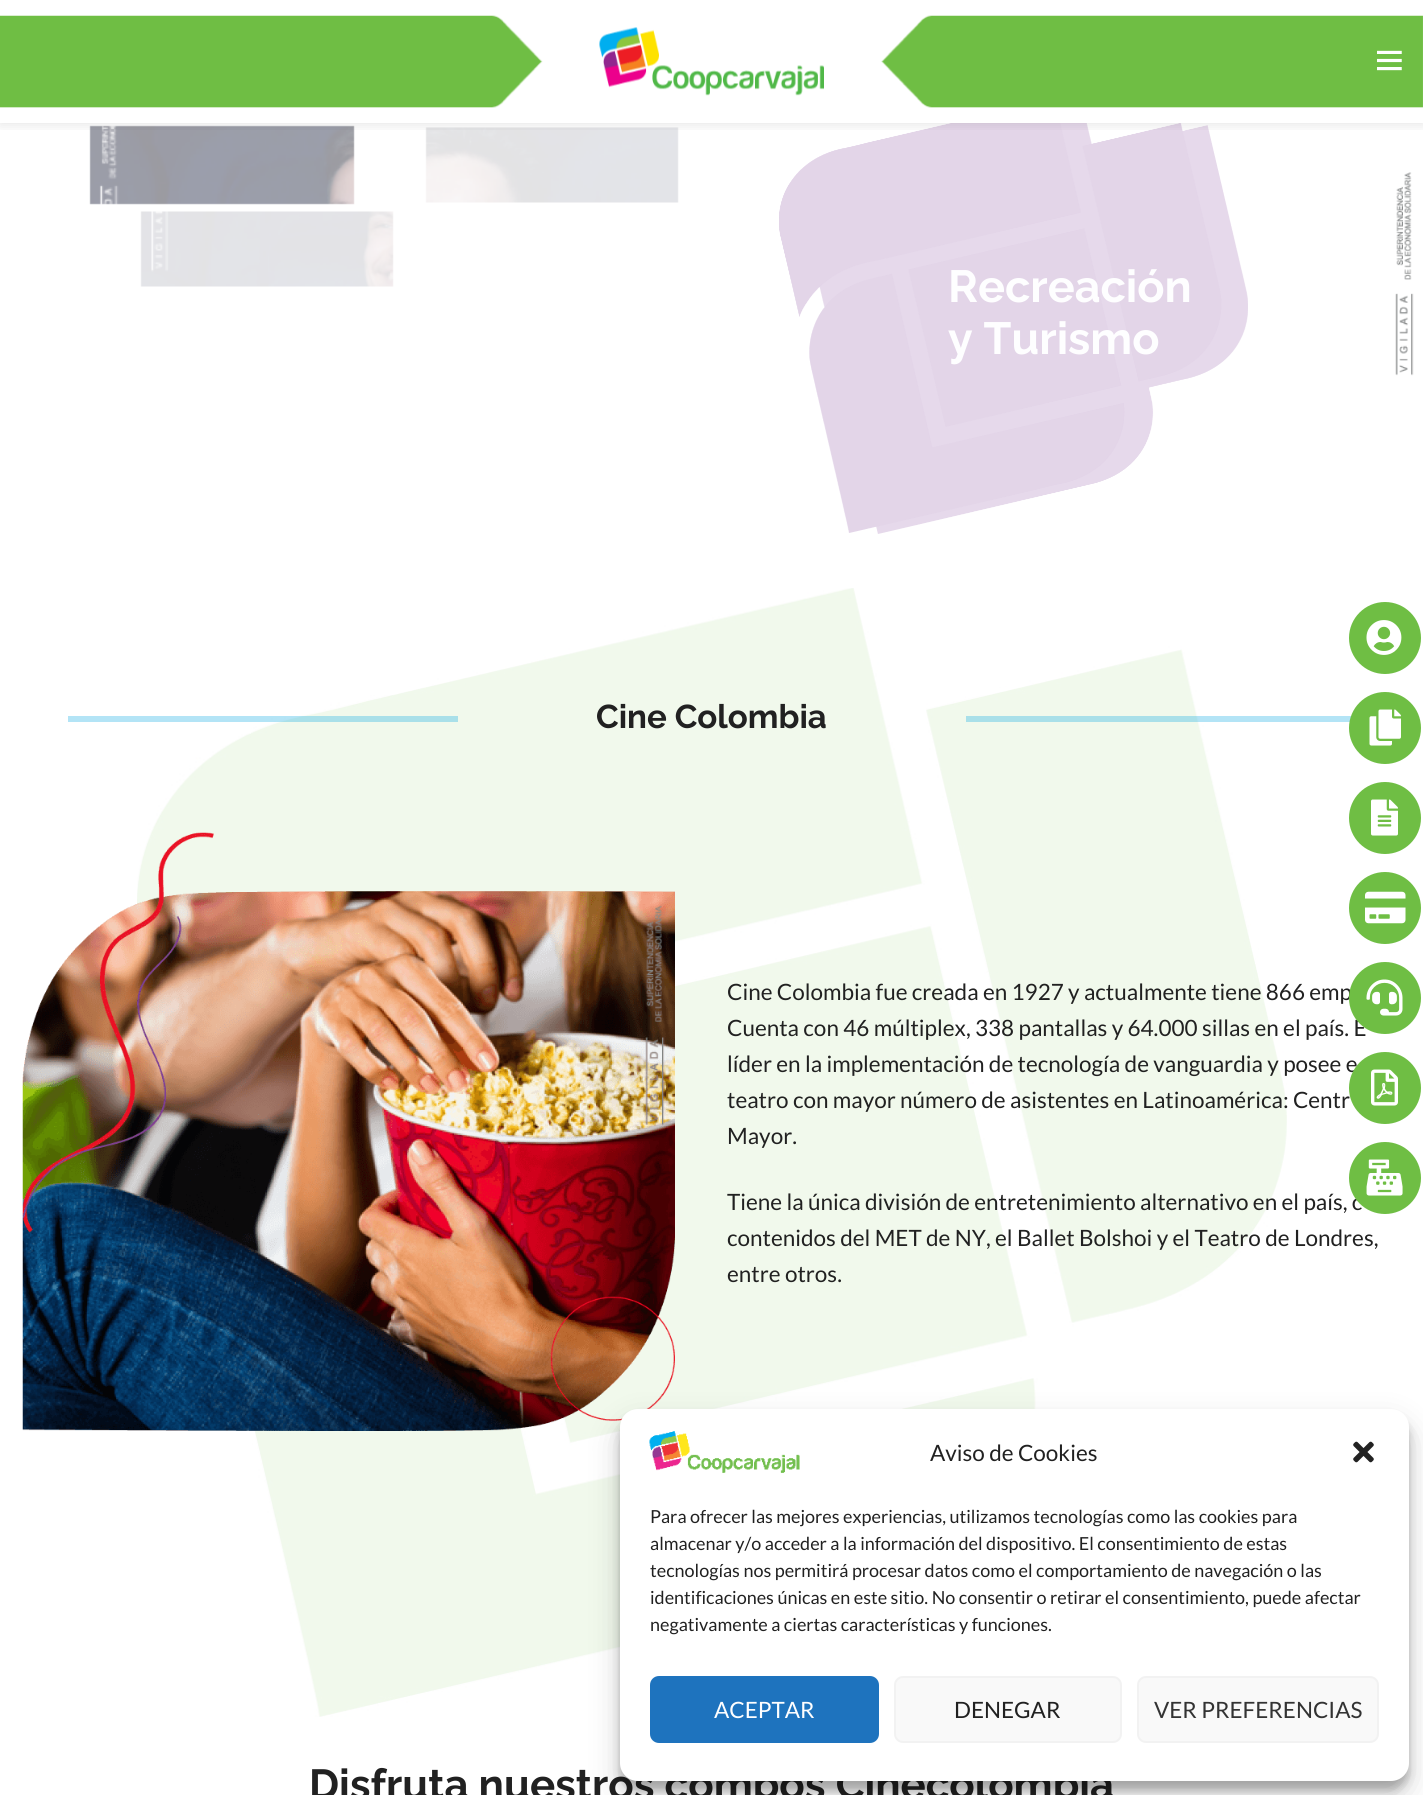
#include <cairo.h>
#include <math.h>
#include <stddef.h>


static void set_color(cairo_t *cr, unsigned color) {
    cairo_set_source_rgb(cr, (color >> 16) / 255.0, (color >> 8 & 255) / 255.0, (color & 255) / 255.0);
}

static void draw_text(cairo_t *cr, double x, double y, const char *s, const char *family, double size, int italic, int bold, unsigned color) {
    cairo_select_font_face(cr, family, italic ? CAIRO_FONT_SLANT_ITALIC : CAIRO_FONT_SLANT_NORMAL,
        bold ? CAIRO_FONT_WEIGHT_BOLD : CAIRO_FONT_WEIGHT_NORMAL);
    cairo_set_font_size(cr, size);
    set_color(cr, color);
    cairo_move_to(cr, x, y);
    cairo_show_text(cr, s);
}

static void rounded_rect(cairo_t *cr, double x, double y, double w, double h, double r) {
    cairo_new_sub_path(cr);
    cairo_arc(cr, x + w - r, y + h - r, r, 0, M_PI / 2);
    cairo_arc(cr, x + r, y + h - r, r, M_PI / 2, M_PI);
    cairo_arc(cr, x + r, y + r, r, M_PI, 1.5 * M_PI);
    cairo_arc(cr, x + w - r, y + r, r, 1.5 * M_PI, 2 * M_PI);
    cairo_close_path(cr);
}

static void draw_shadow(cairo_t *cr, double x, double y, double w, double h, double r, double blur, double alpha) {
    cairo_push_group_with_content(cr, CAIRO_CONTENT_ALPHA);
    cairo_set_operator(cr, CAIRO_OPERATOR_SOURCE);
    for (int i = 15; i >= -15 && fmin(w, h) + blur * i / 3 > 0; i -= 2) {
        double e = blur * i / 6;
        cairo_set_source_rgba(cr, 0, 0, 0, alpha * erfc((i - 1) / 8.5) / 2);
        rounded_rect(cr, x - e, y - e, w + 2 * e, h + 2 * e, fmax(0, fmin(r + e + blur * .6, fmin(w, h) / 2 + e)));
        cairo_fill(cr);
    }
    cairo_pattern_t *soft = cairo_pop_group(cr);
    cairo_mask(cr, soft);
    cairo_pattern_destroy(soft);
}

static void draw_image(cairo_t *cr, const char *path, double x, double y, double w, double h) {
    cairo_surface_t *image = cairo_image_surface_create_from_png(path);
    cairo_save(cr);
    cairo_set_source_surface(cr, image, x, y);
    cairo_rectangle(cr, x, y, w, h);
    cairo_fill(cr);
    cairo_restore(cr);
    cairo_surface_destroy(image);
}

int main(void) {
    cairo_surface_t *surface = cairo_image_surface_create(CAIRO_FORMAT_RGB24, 1423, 1795);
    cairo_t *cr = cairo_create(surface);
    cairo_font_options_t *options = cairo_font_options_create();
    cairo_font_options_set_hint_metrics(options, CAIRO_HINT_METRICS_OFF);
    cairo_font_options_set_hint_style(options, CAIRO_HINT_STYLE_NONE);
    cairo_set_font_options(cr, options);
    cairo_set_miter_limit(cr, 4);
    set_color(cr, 0xFFFFFF);
    cairo_paint(cr);
    draw_image(cr, "assets/img4.png", 89, 125, 590, 162);
    draw_image(cr, "assets/img5.png", 779, 123, 469, 411);
    cairo_save(cr);
    cairo_rectangle(cr, 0, 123, 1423, 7);
    cairo_clip(cr);
    set_color(cr, 0x000000);
    draw_shadow(cr, 0, 2, 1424, 123, 0, 6, 0.1);
    cairo_restore(cr);
    draw_image(cr, "assets/img1.png", 0, 15, 1423, 93);
    draw_image(cr, "assets/img2.png", 599, 27, 225, 69);
    draw_image(cr, "assets/img3.png", 1377, 50, 25, 21);
    draw_image(cr, "assets/img6.png", 1395, 172, 19, 204);
    draw_text(cr, 948, 302, "Recreación", "Raleway Thin", 45, 0, 0, 0xFEFEFF);
    draw_text(cr, 948, 354, "y Turismo", "Raleway Thin", 45, 0, 0, 0xFEFEFF);
    draw_image(cr, "assets/img7.png", 137, 588, 1150, 1129);
    cairo_set_source_rgba(cr, 0, 0.639, 0.878, 0.3);
    cairo_rectangle(cr, 68, 716, 390, 6);
    cairo_fill(cr);
    draw_text(cr, 596, 728, "Cine Colombia", "Raleway Thin", 33, 0, 0, 0x212121);
    cairo_set_source_rgba(cr, 0, 0.639, 0.878, 0.3);
    cairo_rectangle(cr, 966, 716, 390, 6);
    cairo_fill(cr);
    draw_image(cr, "assets/img8.png", 22, 832, 653, 599);
    draw_text(cr, 727, 1000, "Cine Colombia fue creada en 1927 y actualmente tiene 866 emp", "Lato", 22.5, 0, 0, 0x212121);
    draw_text(cr, 727, 1036, "Cuenta con 46 múltiplex, 338 pantallas y 64.000 sillas en el país. E", "Lato", 22.5, 0, 0, 0x212121);
    draw_text(cr, 727, 1072, "líder en la implementación de tecnología de vanguardia y posee e", "Lato", 22.5, 0, 0, 0x212121);
    draw_text(cr, 727, 1108, "teatro con mayor número de asistentes en Latinoamérica: Centr", "Lato", 22.5, 0, 0, 0x212121);
    draw_text(cr, 727, 1144, "Mayor.", "Lato", 22.5, 0, 0, 0x212121);
    draw_text(cr, 727, 1210, "Tiene la única división de entretenimiento alternativo en el país, c", "Lato", 22.5, 0, 0, 0x212121);
    draw_text(cr, 727, 1246, "contenidos del MET de NY, el Ballet Bolshoi y el Teatro de Londres,", "Lato", 22.5, 0, 0, 0x212121);
    draw_text(cr, 727, 1282, "entre otros.", "Lato", 22.5, 0, 0, 0x212121);
    draw_text(cr, 309, 1799, "Disfruta nuestros combos Cinecolombia", "Raleway Thin", 42, 0, 0, 0x212121);
    set_color(cr, 0x6FBE44);
    cairo_new_path(cr);
    cairo_arc(cr, 1385, 638, 36, 0, 2 * M_PI);
    cairo_fill(cr);
    draw_image(cr, "assets/img9.png", 1366, 620, 36, 35);
    cairo_arc(cr, 1385, 728, 36, 0, 2 * M_PI);
    cairo_fill(cr);
    draw_image(cr, "assets/img10.png", 1369, 709, 32, 37);
    cairo_arc(cr, 1385, 818, 36, 0, 2 * M_PI);
    cairo_fill(cr);
    draw_image(cr, "assets/img11.png", 1371, 799, 27, 37);
    cairo_arc(cr, 1385, 908, 36, 0, 2 * M_PI);
    cairo_fill(cr);
    draw_image(cr, "assets/img12.png", 1365, 891, 41, 33);
    cairo_arc(cr, 1385, 998, 36, 0, 2 * M_PI);
    cairo_fill(cr);
    draw_image(cr, "assets/img13.png", 1366, 979, 37, 37);
    cairo_arc(cr, 1385, 1088, 36, 0, 2 * M_PI);
    cairo_fill(cr);
    draw_image(cr, "assets/img14.png", 1371, 1069, 27, 37);
    cairo_arc(cr, 1385, 1178, 36, 0, 2 * M_PI);
    cairo_fill(cr);
    draw_image(cr, "assets/img15.png", 1366, 1159, 37, 37);
    set_color(cr, 0x000000);
    draw_shadow(cr, 620, 1418, 789, 372, 18, 4.5, 0.23);
    draw_shadow(cr, 620, 1424, 789, 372, 18, 15, 0.19);
    set_color(cr, 0xFFFFFF);
    rounded_rect(cr, 620, 1409, 789, 372, 18);
    cairo_fill(cr);
    draw_image(cr, "assets/img16.png", 649, 1431, 151, 42);
    draw_text(cr, 930, 1461, "Aviso de Cookies", "Lato", 22.5, 0, 0, 0x212121);
    draw_image(cr, "assets/img17.png", 1353, 1441, 21, 22);
    draw_text(cr, 650, 1523, "Para ofrecer las mejores experiencias, utilizamos tecnologías como las cookies para", "Lato", 18, 0, 0, 0x212121);
    draw_text(cr, 650, 1550, "almacenar y/o acceder a la información del dispositivo. El consentimiento de estas", "Lato", 18, 0, 0, 0x212121);
    draw_text(cr, 650, 1577, "tecnologías nos permitirá procesar datos como el comportamiento de navegación o las", "Lato", 18, 0, 0, 0x212121);
    draw_text(cr, 650, 1604, "identificaciones únicas en este sitio. No consentir o retirar el consentimiento, puede afectar", "Lato", 18, 0, 0, 0x212121);
    draw_text(cr, 650, 1631, "negativamente a ciertas características y funciones.", "Lato", 18, 0, 0, 0x212121);
    set_color(cr, 0x1E73BE);
    rounded_rect(cr, 651, 1677, 227, 65, 8);
    cairo_fill_preserve(cr);
    cairo_stroke(cr);
    draw_text(cr, 714, 1718, "ACEPTAR", "Lato", 22.5, 0, 0, 0xFEFEFF);
    set_color(cr, 0xF9F9F9);
    rounded_rect(cr, 895, 1677, 226, 65, 8);
    cairo_fill_preserve(cr);
    set_color(cr, 0xF2F2F2);
    cairo_stroke(cr);
    draw_text(cr, 954, 1718, "DENEGAR", "Lato", 22.5, 0, 0, 0x212121);
    set_color(cr, 0xF9F9F9);
    rounded_rect(cr, 1138, 1677, 240, 65, 8);
    cairo_fill_preserve(cr);
    set_color(cr, 0xF2F2F2);
    cairo_stroke(cr);
    draw_text(cr, 1154, 1718, "VER PREFERENCIAS", "Lato", 22.5, 0, 0, 0x333333);
    cairo_surface_write_to_png(surface, "output.png");
    cairo_font_options_destroy(options);
    cairo_destroy(cr);
    cairo_surface_destroy(surface);
    return 0;
}
